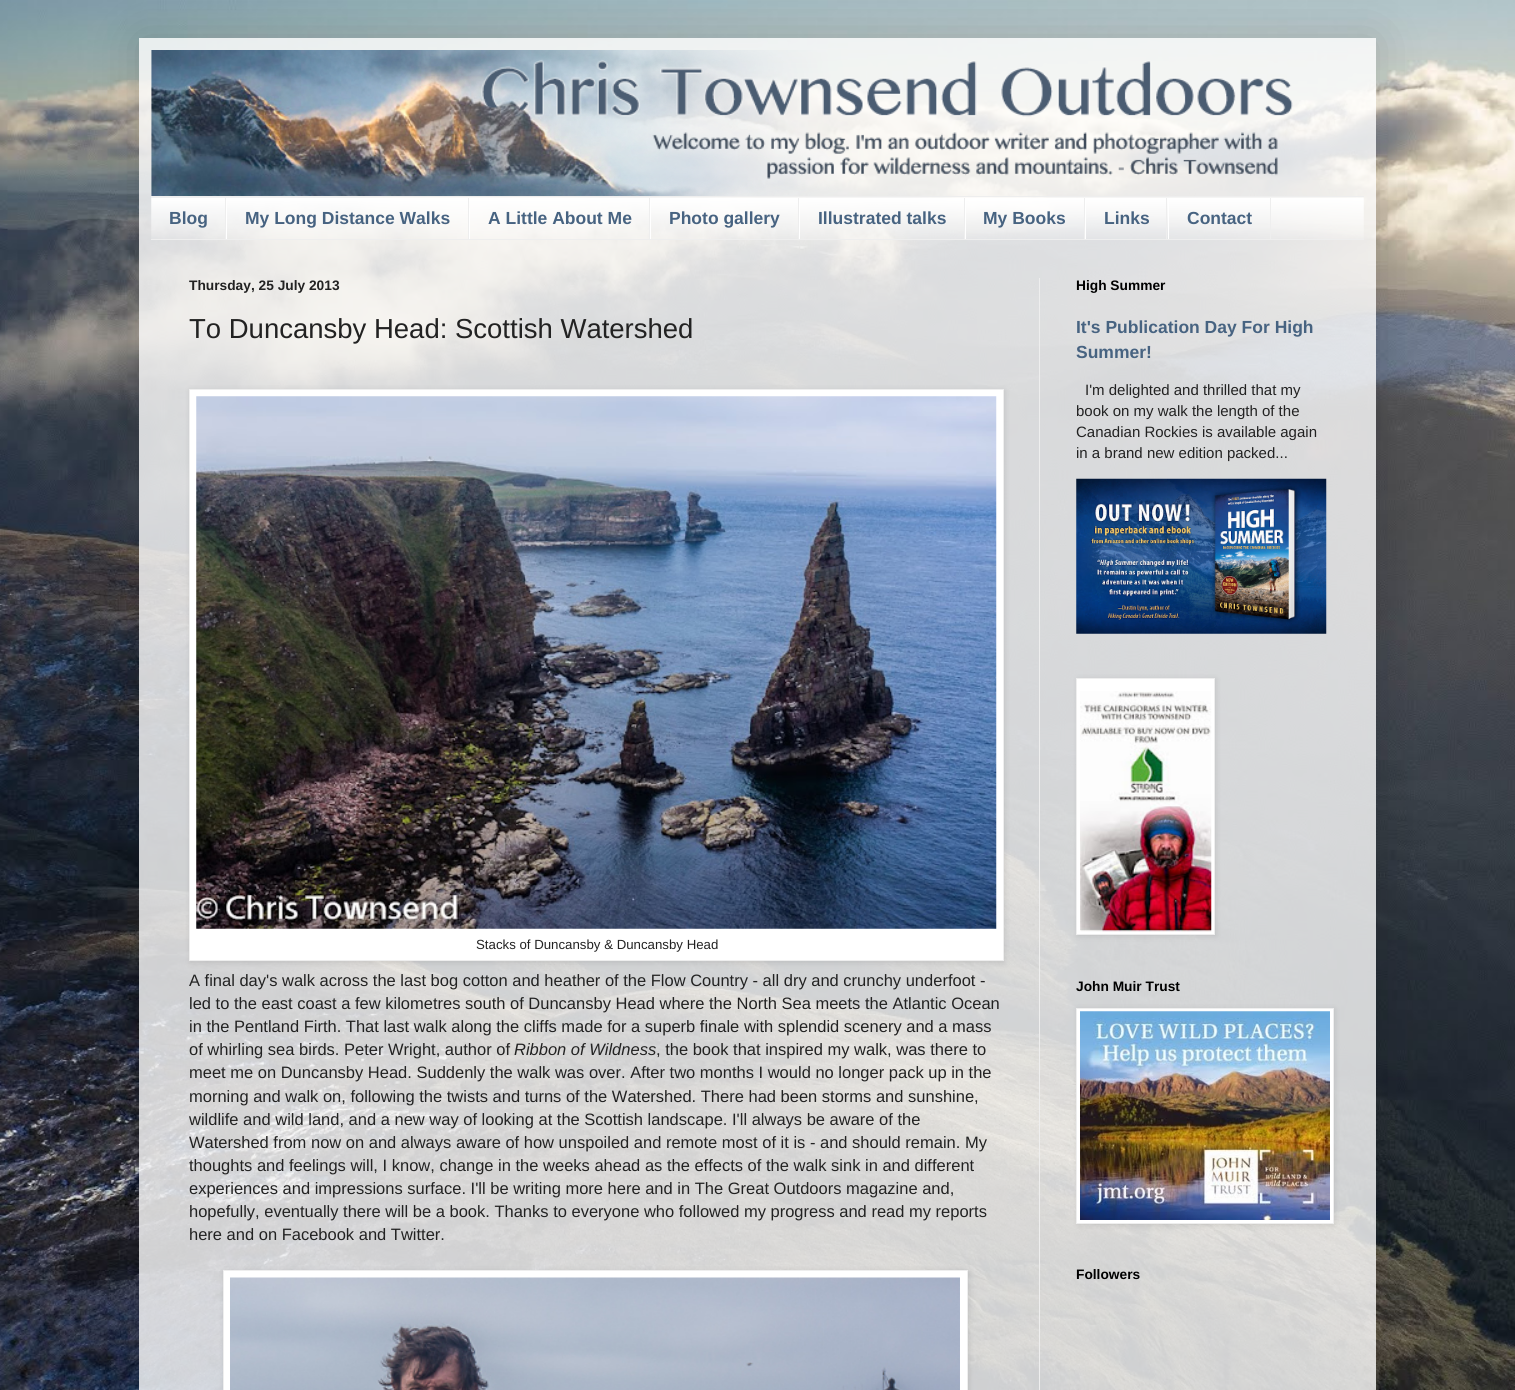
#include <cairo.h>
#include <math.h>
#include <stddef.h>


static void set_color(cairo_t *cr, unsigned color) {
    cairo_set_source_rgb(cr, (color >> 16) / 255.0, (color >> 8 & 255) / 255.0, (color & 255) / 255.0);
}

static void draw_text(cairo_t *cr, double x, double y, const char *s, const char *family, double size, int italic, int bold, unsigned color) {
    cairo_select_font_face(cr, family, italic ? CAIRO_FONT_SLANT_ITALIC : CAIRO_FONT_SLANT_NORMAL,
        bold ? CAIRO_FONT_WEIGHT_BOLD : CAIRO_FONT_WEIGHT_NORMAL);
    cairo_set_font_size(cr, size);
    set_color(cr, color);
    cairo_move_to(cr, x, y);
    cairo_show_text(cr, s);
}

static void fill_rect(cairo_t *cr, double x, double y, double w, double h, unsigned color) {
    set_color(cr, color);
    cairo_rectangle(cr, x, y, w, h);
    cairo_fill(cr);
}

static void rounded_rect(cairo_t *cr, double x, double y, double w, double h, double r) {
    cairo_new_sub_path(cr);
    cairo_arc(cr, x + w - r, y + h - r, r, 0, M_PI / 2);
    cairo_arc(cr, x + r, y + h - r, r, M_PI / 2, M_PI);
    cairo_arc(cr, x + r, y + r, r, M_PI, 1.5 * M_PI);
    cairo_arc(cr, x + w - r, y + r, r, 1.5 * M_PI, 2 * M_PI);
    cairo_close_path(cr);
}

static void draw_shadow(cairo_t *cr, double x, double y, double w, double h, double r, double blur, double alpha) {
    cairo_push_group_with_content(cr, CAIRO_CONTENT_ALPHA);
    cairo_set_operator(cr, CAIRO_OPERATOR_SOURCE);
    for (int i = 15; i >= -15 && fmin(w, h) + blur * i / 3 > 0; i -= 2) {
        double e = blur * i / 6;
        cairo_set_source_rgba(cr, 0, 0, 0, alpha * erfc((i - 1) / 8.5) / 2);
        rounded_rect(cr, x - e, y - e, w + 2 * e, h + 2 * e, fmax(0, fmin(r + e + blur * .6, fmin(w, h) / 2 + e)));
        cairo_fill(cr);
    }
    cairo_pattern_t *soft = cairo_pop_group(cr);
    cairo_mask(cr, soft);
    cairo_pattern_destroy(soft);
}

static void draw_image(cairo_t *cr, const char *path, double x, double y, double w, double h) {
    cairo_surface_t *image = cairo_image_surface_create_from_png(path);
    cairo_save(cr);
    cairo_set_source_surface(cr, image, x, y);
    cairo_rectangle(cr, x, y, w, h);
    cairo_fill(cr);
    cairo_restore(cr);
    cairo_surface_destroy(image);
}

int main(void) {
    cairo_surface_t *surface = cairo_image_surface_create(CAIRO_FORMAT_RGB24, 1515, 1390);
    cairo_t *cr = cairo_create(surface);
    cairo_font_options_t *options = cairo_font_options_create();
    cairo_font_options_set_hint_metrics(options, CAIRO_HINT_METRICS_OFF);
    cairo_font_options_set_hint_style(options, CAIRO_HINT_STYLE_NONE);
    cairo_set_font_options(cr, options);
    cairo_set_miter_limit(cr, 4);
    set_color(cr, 0xFFFFFF);
    cairo_paint(cr);
    draw_image(cr, "assets/img1.png", 0, 500, 1515, 890);
    draw_image(cr, "assets/img2.png", 0, 0, 1515, 500);
    cairo_save(cr);
    cairo_set_fill_rule(cr, CAIRO_FILL_RULE_EVEN_ODD);
    cairo_new_path(cr);
    cairo_move_to(cr, 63, 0);
    cairo_line_to(cr, 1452, 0);
    cairo_line_to(cr, 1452, 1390);
    cairo_line_to(cr, 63, 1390);
    cairo_close_path(cr);
    cairo_move_to(cr, 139, 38);
    cairo_line_to(cr, 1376, 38);
    cairo_line_to(cr, 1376, 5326);
    cairo_line_to(cr, 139, 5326);
    cairo_close_path(cr);
    cairo_clip(cr);
    set_color(cr, 0x000000);
    draw_shadow(cr, 139, 38, 1237, 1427, 0, 25, 0.15);
    cairo_restore(cr);
    cairo_set_source_rgba(cr, 1, 1, 1, 0.8);
    cairo_rectangle(cr, 139, 38, 1237, 1352);
    cairo_fill(cr);
    draw_image(cr, "assets/img3.png", 151, 50, 1142, 146);
    draw_image(cr, "assets/img4.png", 151, 197, 1213, 42);
    fill_rect(cr, 151, 196, 1213, 1, 0xEEEEEE);
    fill_rect(cr, 151, 239, 1213, 1, 0xEEEEEE);
    fill_rect(cr, 225, 198, 1, 41, 0xEEEEEE);
    draw_text(cr, 169, 224, "Blog", "Liberation Sans", 17.5, 0, 1, 0x476381);
    fill_rect(cr, 468, 198, 1, 41, 0xEEEEEE);
    fill_rect(cr, 226, 198, 1, 41, 0xFFFFFF);
    draw_text(cr, 245, 224, "My Long Distance Walks", "Liberation Sans", 17.5, 0, 1, 0x476381);
    fill_rect(cr, 649, 198, 1, 41, 0xEEEEEE);
    fill_rect(cr, 469, 208, 1, 31, 0xFFFFFF);
    draw_text(cr, 488, 224, "A Little About Me", "Liberation Sans", 17.5, 0, 1, 0x476381);
    fill_rect(cr, 798, 198, 1, 41, 0xEEEEEE);
    fill_rect(cr, 650, 198, 1, 41, 0xFFFFFF);
    draw_text(cr, 669, 224, "Photo gallery", "Liberation Sans", 17.5, 0, 1, 0x476381);
    fill_rect(cr, 964, 198, 1, 41, 0xEEEEEE);
    fill_rect(cr, 799, 198, 1, 41, 0xFFFFFF);
    draw_text(cr, 818, 224, "Illustrated talks", "Liberation Sans", 17.5, 0, 1, 0x476381);
    fill_rect(cr, 1084, 198, 1, 41, 0xEEEEEE);
    fill_rect(cr, 965, 198, 1, 41, 0xFFFFFF);
    draw_text(cr, 983, 224, "My Books", "Liberation Sans", 17.5, 0, 1, 0x476381);
    fill_rect(cr, 1166, 198, 1, 41, 0xEEEEEE);
    fill_rect(cr, 1085, 198, 1, 41, 0xFFFFFF);
    draw_text(cr, 1104, 224, "Links", "Liberation Sans", 17.5, 0, 1, 0x476381);
    fill_rect(cr, 1270, 198, 1, 41, 0xEEEEEE);
    fill_rect(cr, 1168, 198, 1, 41, 0xFFFFFF);
    draw_text(cr, 1187, 224, "Contact", "Liberation Sans", 17.5, 0, 1, 0x476381);
    fill_rect(cr, 1039, 278, 1, 1112, 0xEEEEEE);
    draw_text(cr, 189, 290, "Thursday, 25 July 2013", "Liberation Sans", 13.75, 0, 1, 0x222222);
    draw_text(cr, 189, 338, "To Duncansby Head: Scottish Watershed", "Liberation Sans", 27.5, 0, 0, 0x222222);
    set_color(cr, 0x000000);
    draw_shadow(cr, 190, 390, 815, 573, 0, 3, 0.1);
    set_color(cr, 0xFFFFFF);
    cairo_rectangle(cr, 189.5, 389.5, 814, 571);
    cairo_fill_preserve(cr);
    set_color(cr, 0xEEEEEE);
    cairo_set_line_width(cr, 1);
    cairo_stroke(cr);
    draw_image(cr, "assets/img5.png", 196, 396, 801, 533);
    draw_text(cr, 476, 949, "Stacks of Duncansby & Duncansby Head", "Liberation Sans", 13.25, 0, 0, 0x222222);
    draw_text(cr, 189, 986, "A final day's walk across the last bog cotton and heather of the Flow Country - all dry and crunchy underfoot -", "Liberation Sans", 16.5, 0, 0, 0x222222);
    draw_text(cr, 189, 1009, "led to the east coast a few kilometres south of Duncansby Head where the North Sea meets the Atlantic Ocean", "Liberation Sans", 16.5, 0, 0, 0x222222);
    draw_text(cr, 189, 1032, "in the Pentland Firth. That last walk along the cliffs made for a superb finale with splendid scenery and a mass", "Liberation Sans", 16.5, 0, 0, 0x222222);
    draw_text(cr, 189, 1055, "of whirling sea birds. Peter Wright, author of", "Liberation Sans", 16.5, 0, 0, 0x222222);
    draw_text(cr, 514, 1055, "Ribbon of Wildness", "Liberation Sans", 16.5, 1, 0, 0x222222);
    draw_text(cr, 656, 1055, ", the book that inspired my walk, was there to", "Liberation Sans", 16.5, 0, 0, 0x222222);
    draw_text(cr, 189, 1078, "meet me on Duncansby Head. Suddenly the walk was over. After two months I would no longer pack up in the", "Liberation Sans", 16.5, 0, 0, 0x222222);
    draw_text(cr, 189, 1102, "morning and walk on, following the twists and turns of the Watershed. There had been storms and sunshine,", "Liberation Sans", 16.5, 0, 0, 0x222222);
    draw_text(cr, 189, 1125, "wildlife and wild land, and a new way of looking at the Scottish landscape. I'll always be aware of the", "Liberation Sans", 16.5, 0, 0, 0x222222);
    draw_text(cr, 189, 1148, "Watershed from now on and always aware of how unspoiled and remote most of it is - and should remain. My", "Liberation Sans", 16.5, 0, 0, 0x222222);
    draw_text(cr, 189, 1171, "thoughts and feelings will, I know, change in the weeks ahead as the effects of the walk sink in and different", "Liberation Sans", 16.5, 0, 0, 0x222222);
    draw_text(cr, 189, 1194, "experiences and impressions surface. I'll be writing more here and in The Great Outdoors magazine and,", "Liberation Sans", 16.5, 0, 0, 0x222222);
    draw_text(cr, 189, 1217, "hopefully, eventually there will be a book. Thanks to everyone who followed my progress and read my reports", "Liberation Sans", 16.5, 0, 0, 0x222222);
    draw_text(cr, 189, 1240, "here and on Facebook and Twitter.", "Liberation Sans", 16.5, 0, 0, 0x222222);
    set_color(cr, 0x000000);
    draw_shadow(cr, 224, 1271, 745, 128, 0, 3, 0.1);
    set_color(cr, 0xFFFFFF);
    cairo_rectangle(cr, 223.5, 1270.5, 744, 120);
    cairo_fill_preserve(cr);
    set_color(cr, 0xEEEEEE);
    cairo_stroke(cr);
    draw_image(cr, "assets/img6.png", 230, 1277, 730, 113);
    draw_text(cr, 1076, 290, "High Summer", "Liberation Sans", 13.75, 0, 1, 0x000000);
    draw_text(cr, 1076, 333, "It's Publication Day For High", "Liberation Sans", 17.5, 0, 1, 0x476381);
    draw_text(cr, 1076, 358, "Summer!", "Liberation Sans", 17.5, 0, 1, 0x476381);
    draw_text(cr, 1085, 395, "I'm delighted and thrilled that my", "Liberation Sans", 15, 0, 0, 0x222222);
    draw_text(cr, 1076, 416, "book on my walk the length of the", "Liberation Sans", 15, 0, 0, 0x222222);
    draw_text(cr, 1076, 437, "Canadian Rockies is available again", "Liberation Sans", 15, 0, 0, 0x222222);
    draw_text(cr, 1076, 458, "in a brand new edition packed...", "Liberation Sans", 15, 0, 0, 0x222222);
    draw_image(cr, "assets/img7.png", 1076, 478, 251, 156);
    set_color(cr, 0x000000);
    draw_shadow(cr, 1078, 679, 138, 257, 0, 3, 0.1);
    set_color(cr, 0xFFFFFF);
    cairo_rectangle(cr, 1076.5, 678.5, 138, 256);
    cairo_fill_preserve(cr);
    set_color(cr, 0xEEEEEE);
    cairo_stroke(cr);
    draw_image(cr, "assets/img8.png", 1080, 691, 132, 241);
    draw_text(cr, 1076, 991, "John Muir Trust", "Liberation Sans", 13.75, 0, 1, 0x000000);
    set_color(cr, 0x000000);
    draw_shadow(cr, 1078, 1009, 257, 216, 0, 3, 0.1);
    set_color(cr, 0xFFFFFF);
    cairo_rectangle(cr, 1076.5, 1008.5, 257, 215);
    cairo_fill_preserve(cr);
    set_color(cr, 0xEEEEEE);
    cairo_stroke(cr);
    draw_image(cr, "assets/img9.png", 1080, 1011, 250, 209);
    draw_text(cr, 1076, 1279, "Followers", "Liberation Sans", 13.75, 0, 1, 0x000000);
    cairo_surface_write_to_png(surface, "output.png");
    cairo_font_options_destroy(options);
    cairo_destroy(cr);
    cairo_surface_destroy(surface);
    return 0;
}
